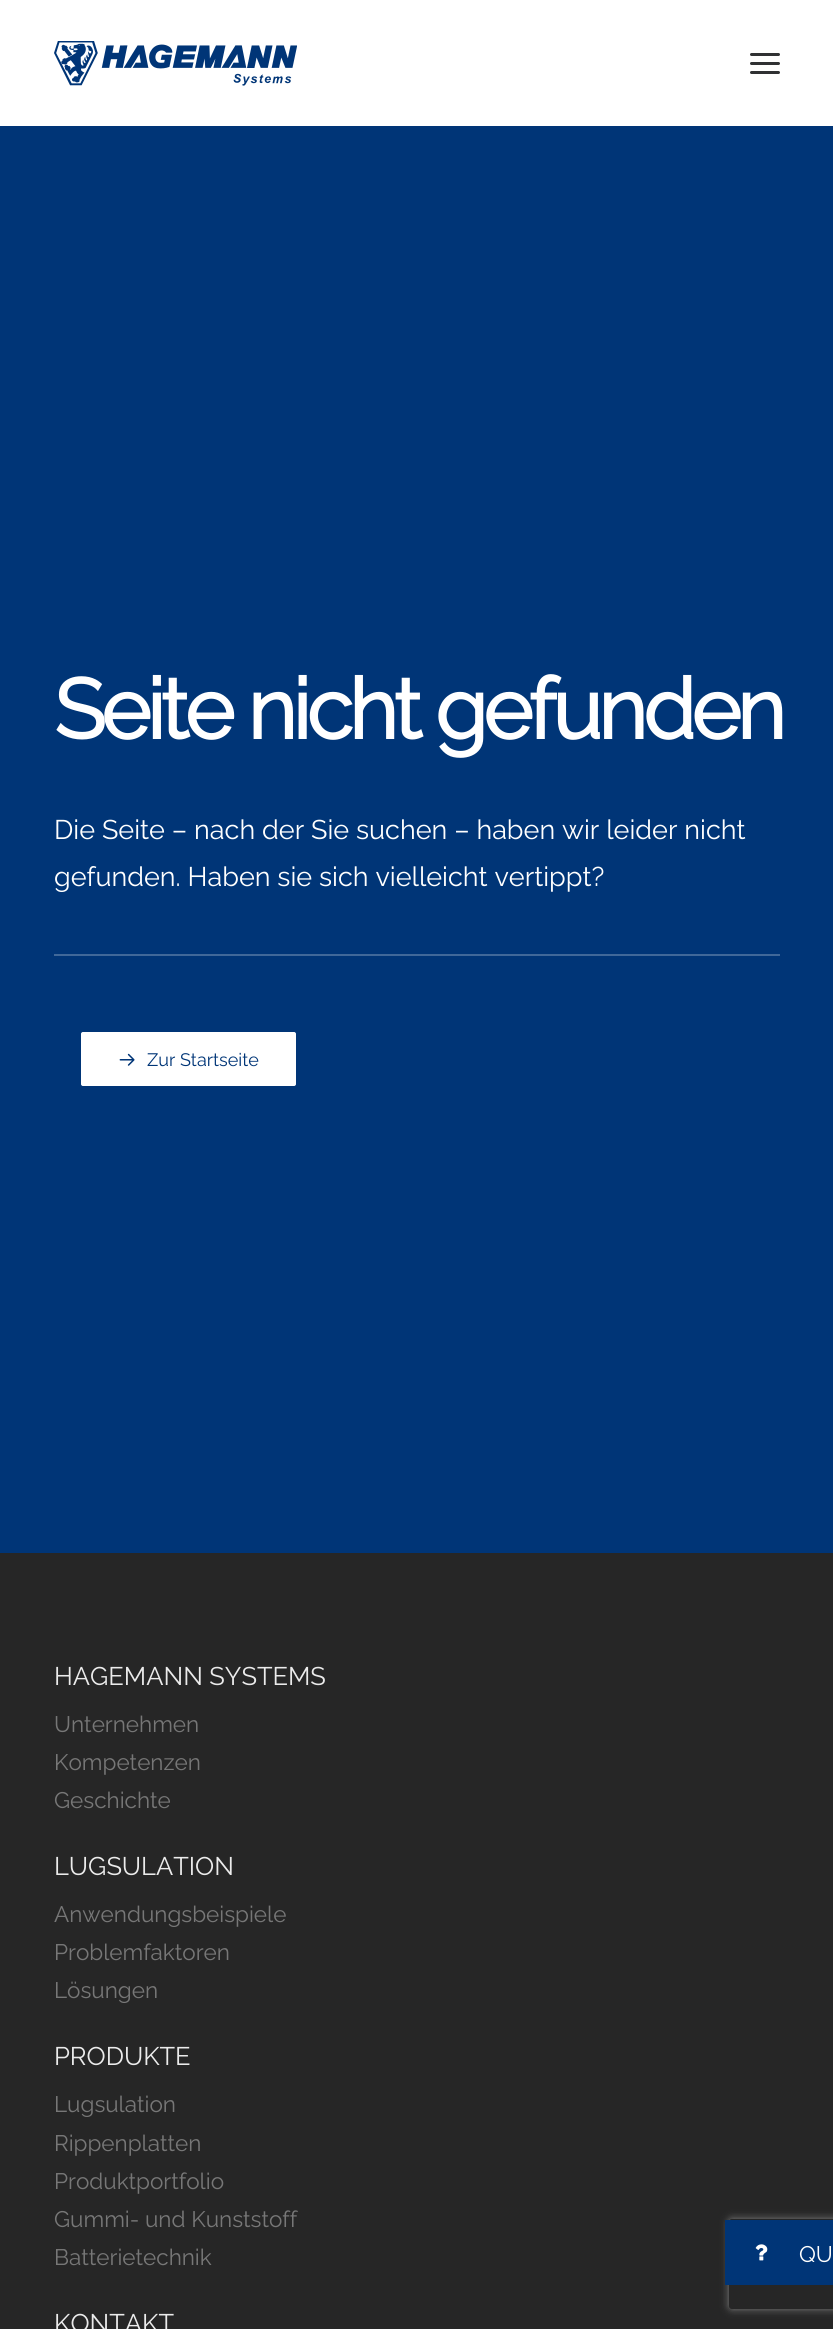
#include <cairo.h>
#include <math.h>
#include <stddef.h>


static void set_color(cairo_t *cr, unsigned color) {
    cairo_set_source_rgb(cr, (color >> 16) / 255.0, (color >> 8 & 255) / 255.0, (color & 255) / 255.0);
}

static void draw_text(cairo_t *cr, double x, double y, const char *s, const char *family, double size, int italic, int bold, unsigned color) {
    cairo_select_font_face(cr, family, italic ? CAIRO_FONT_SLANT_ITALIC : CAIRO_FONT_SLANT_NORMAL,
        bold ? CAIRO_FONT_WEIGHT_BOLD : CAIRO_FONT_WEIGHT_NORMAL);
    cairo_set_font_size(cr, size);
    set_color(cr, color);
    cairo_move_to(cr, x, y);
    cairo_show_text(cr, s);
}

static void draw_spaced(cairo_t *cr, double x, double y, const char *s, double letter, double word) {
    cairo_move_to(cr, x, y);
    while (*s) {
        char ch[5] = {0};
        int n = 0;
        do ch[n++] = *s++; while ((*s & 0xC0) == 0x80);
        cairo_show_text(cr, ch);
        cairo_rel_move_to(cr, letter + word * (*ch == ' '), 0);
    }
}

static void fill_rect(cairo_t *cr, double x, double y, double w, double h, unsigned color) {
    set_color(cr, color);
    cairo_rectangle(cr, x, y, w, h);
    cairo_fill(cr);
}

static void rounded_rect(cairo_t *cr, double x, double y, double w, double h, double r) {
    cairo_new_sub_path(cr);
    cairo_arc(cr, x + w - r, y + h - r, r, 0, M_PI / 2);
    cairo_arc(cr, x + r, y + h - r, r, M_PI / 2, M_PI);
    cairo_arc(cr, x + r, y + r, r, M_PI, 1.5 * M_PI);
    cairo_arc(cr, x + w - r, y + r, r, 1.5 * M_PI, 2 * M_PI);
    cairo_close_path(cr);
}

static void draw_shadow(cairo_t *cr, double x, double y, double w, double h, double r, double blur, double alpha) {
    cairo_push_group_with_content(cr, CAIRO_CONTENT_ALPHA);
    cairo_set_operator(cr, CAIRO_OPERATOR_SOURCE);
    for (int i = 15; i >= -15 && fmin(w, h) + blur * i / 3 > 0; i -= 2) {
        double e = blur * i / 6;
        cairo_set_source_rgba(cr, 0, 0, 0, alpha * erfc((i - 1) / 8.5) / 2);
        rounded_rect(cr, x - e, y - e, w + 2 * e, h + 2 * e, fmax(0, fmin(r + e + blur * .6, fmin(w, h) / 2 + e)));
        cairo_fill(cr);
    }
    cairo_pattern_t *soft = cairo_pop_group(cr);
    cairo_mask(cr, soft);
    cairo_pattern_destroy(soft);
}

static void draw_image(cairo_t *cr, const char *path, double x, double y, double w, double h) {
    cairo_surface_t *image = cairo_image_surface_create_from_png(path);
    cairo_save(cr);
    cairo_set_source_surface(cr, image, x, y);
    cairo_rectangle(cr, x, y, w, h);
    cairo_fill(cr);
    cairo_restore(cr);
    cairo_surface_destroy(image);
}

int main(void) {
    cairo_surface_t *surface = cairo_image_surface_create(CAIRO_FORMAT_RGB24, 833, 2329);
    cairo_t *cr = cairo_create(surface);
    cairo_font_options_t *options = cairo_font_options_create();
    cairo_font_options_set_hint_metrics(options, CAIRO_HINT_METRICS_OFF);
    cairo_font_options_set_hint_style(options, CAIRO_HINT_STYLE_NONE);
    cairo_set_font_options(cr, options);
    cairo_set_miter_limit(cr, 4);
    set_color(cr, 0x003577);
    cairo_paint(cr);
    fill_rect(cr, 0, 0, 833, 126, 0xFFFFFF);
    draw_image(cr, "assets/img1.png", 54, 41, 243, 45);
    set_color(cr, 0x303133);
    rounded_rect(cr, 750, 62, 30, 3, 1.5);
    cairo_fill(cr);
    rounded_rect(cr, 750, 53, 30, 3, 1.5);
    cairo_fill(cr);
    rounded_rect(cr, 750, 71, 30, 3, 1.5);
    cairo_fill(cr);
    cairo_select_font_face(cr, "Raleway", CAIRO_FONT_SLANT_NORMAL, CAIRO_FONT_WEIGHT_BOLD);
    cairo_set_font_size(cr, 84.5);
    set_color(cr, 0xFFFFFF);
    draw_spaced(cr, 54, 739, "Seite nicht gefunden", -4.25, 0);
    draw_text(cr, 54, 839, "Die Seite – nach der Sie suchen – haben wir leider nicht", "Raleway", 27, 0, 0, 0xFFFFFF);
    draw_text(cr, 54, 886, "gefunden. Haben sie sich vielleicht vertippt?", "Raleway", 27, 0, 0, 0xFFFFFF);
    fill_rect(cr, 54, 954, 726, 2, 0x406899);
    set_color(cr, 0xFFFFFF);
    rounded_rect(cr, 81.5, 1032.5, 214, 53, 1.5);
    cairo_fill_preserve(cr);
    cairo_set_line_width(cr, 1);
    cairo_stroke(cr);
    draw_image(cr, "assets/img2.png", 119, 1053, 16, 13);
    draw_text(cr, 147, 1066, "Zur Startseite", "Raleway", 18, 0, 0, 0x003577);
    fill_rect(cr, 0, 1553, 833, 776, 0x262626);
    draw_text(cr, 54, 1685, "HAGEMANN SYSTEMS", "Raleway", 25.5, 0, 0, 0xEBEBEB);
    draw_text(cr, 54, 1732, "Unternehmen", "Raleway", 22.5, 0, 0, 0x777777);
    draw_text(cr, 54, 1770, "Kompetenzen", "Raleway", 22.5, 0, 0, 0x777777);
    draw_text(cr, 54, 1808, "Geschichte", "Raleway", 22.5, 0, 0, 0x777777);
    draw_text(cr, 54, 1875, "LUGSULATION", "Raleway", 25.5, 0, 0, 0xEBEBEB);
    draw_text(cr, 54, 1922, "Anwendungsbeispiele", "Raleway", 22.5, 0, 0, 0x777777);
    draw_text(cr, 54, 1960, "Problemfaktoren", "Raleway", 22.5, 0, 0, 0x777777);
    draw_text(cr, 54, 1998, "Lösungen", "Raleway", 22.5, 0, 0, 0x777777);
    draw_text(cr, 54, 2065, "PRODUKTE", "Raleway", 25.5, 0, 0, 0xEBEBEB);
    draw_text(cr, 54, 2112, "Lugsulation", "Raleway", 22.5, 0, 0, 0x777777);
    draw_text(cr, 54, 2151, "Rippenplatten", "Raleway", 22.5, 0, 0, 0x777777);
    draw_text(cr, 54, 2189, "Produktportfolio", "Raleway", 22.5, 0, 0, 0x777777);
    draw_text(cr, 54, 2227, "Gummi- und Kunststoff", "Raleway", 22.5, 0, 0, 0x777777);
    draw_text(cr, 54, 2265, "Batterietechnik", "Raleway", 22.5, 0, 0, 0x777777);
    draw_text(cr, 54, 2332, "KONTAKT", "Raleway", 25.5, 0, 0, 0xEBEBEB);
    cairo_save(cr);
    cairo_set_fill_rule(cr, CAIRO_FILL_RULE_EVEN_ODD);
    cairo_new_path(cr);
    cairo_move_to(cr, 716, 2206);
    cairo_line_to(cr, 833, 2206);
    cairo_line_to(cr, 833, 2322);
    cairo_line_to(cr, 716, 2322);
    cairo_close_path(cr);
    cairo_move_to(cr, 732, 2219);
    cairo_line_to(cr, 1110, 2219);
    cairo_curve_to(cr, 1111.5, 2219, 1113, 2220.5, 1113, 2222);
    cairo_line_to(cr, 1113, 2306);
    cairo_curve_to(cr, 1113, 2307.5, 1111.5, 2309, 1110, 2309);
    cairo_line_to(cr, 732, 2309);
    cairo_curve_to(cr, 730.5, 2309, 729, 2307.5, 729, 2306);
    cairo_line_to(cr, 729, 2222);
    cairo_curve_to(cr, 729, 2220.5, 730.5, 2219, 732, 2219);
    cairo_close_path(cr);
    cairo_clip(cr);
    set_color(cr, 0x808080);
    draw_shadow(cr, 729, 2219, 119, 90, 3, 4, 1);
    cairo_restore(cr);
    fill_rect(cr, 725, 2220, 108, 65, 0x003577);
    draw_image(cr, "assets/img3.png", 755, 2244, 13, 17);
    draw_text(cr, 799, 2262, "QU", "Raleway", 22.5, 0, 0, 0xFFFFFF);
    cairo_surface_write_to_png(surface, "output.png");
    cairo_font_options_destroy(options);
    cairo_destroy(cr);
    cairo_surface_destroy(surface);
    return 0;
}
